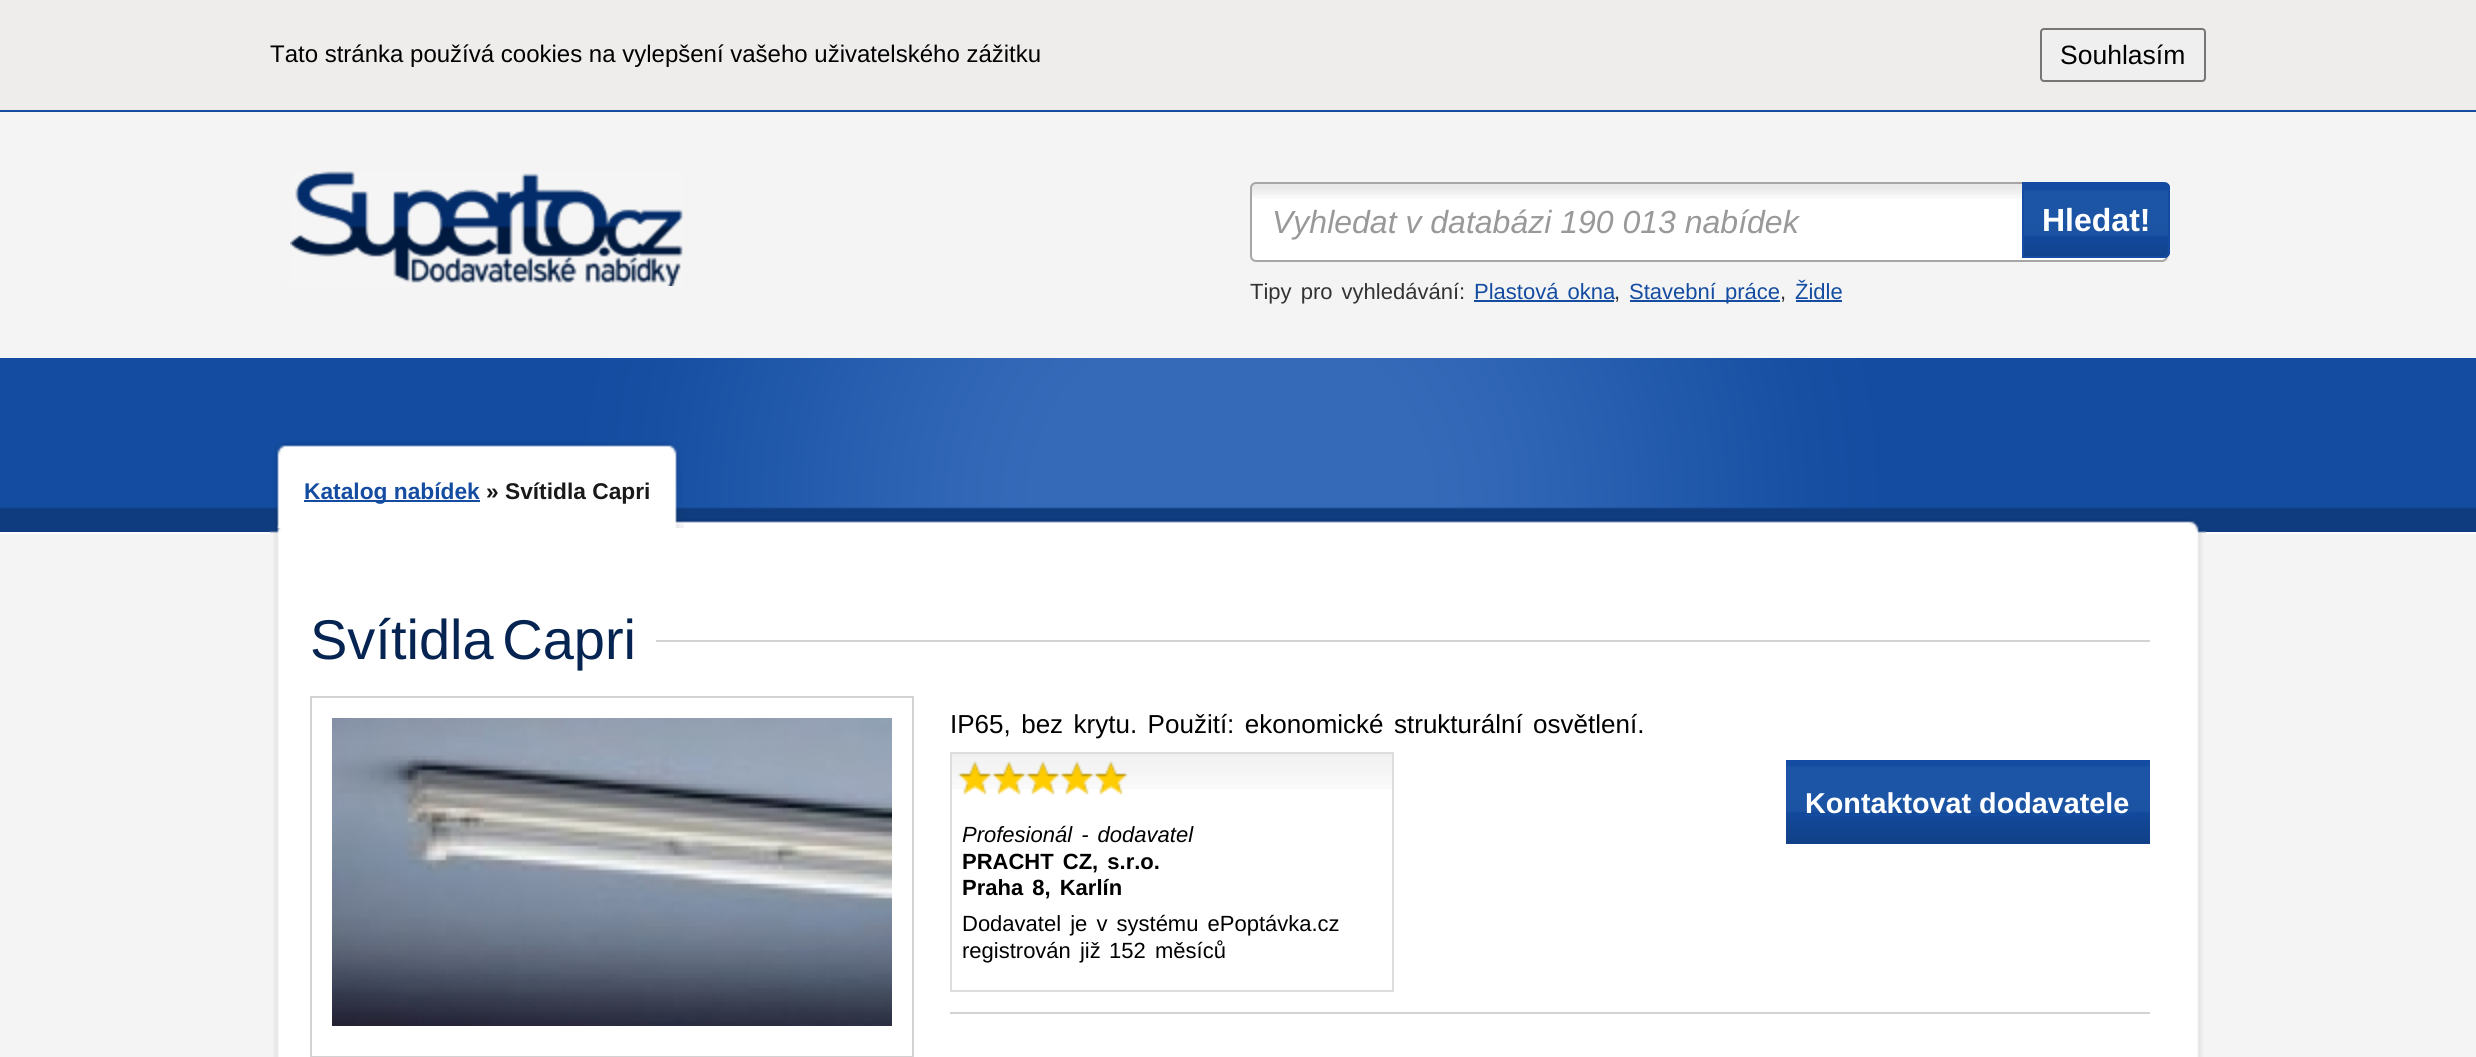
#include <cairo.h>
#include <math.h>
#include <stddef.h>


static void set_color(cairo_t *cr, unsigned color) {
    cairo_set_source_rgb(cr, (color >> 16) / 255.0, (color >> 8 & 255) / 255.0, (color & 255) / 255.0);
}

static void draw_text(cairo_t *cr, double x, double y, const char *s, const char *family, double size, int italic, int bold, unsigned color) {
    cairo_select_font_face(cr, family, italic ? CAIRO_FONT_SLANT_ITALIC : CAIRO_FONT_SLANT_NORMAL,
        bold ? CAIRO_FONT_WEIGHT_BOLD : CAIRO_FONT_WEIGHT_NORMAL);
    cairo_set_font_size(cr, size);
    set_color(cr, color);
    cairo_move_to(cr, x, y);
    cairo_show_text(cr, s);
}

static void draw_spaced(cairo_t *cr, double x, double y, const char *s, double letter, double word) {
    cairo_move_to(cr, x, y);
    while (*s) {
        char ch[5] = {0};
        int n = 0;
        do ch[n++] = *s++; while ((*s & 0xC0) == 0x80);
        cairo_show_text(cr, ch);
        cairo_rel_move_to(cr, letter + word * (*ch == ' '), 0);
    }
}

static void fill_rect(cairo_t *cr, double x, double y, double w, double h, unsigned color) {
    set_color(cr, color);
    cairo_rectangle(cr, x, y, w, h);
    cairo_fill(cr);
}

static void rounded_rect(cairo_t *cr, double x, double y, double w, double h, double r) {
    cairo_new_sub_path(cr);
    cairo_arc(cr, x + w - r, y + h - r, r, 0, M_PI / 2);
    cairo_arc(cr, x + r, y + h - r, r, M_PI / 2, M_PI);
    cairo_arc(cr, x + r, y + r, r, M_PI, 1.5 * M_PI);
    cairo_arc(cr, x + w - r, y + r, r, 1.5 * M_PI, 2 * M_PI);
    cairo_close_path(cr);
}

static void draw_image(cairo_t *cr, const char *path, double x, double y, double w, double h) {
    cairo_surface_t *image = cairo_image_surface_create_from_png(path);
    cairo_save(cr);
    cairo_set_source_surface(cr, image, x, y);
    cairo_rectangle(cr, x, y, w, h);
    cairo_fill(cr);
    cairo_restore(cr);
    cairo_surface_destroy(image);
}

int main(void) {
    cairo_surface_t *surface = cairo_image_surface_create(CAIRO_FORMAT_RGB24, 2476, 1057);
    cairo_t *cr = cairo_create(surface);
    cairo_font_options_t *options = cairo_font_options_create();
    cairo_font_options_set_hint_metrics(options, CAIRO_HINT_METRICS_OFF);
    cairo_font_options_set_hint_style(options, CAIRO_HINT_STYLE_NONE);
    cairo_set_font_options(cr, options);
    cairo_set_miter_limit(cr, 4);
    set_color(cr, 0xF5F4F4);
    cairo_paint(cr);
    fill_rect(cr, 0, 0, 2476, 110, 0xEFECEC);
    fill_rect(cr, 0, 110, 2476, 2, 0x134CA0);
    draw_text(cr, 270, 62, "Tato stránka používá cookies na vylepšení vašeho uživatelského zážitku", "Liberation Sans", 24, 0, 0, 0x000000);
    set_color(cr, 0xEFEFEF);
    rounded_rect(cr, 2041, 29, 164, 52, 3);
    cairo_fill_preserve(cr);
    set_color(cr, 0x767676);
    cairo_stroke(cr);
    draw_text(cr, 2060, 64, "Souhlasím", "Liberation Sans", 26.5, 0, 0, 0x000000);
    draw_image(cr, "assets/img1.png", 290, 171, 393, 115);
    set_color(cr, 0xFFFFFF);
    rounded_rect(cr, 1250, 182, 918, 80, 6);
    cairo_fill(cr);
    draw_image(cr, "assets/img2.png", 1250, 184, 772, 15);
    rounded_rect(cr, 1251, 183, 916, 78, 5);
    set_color(cr, 0xA6A6A6);
    cairo_stroke(cr);
    draw_text(cr, 1272, 233, "Vyhledat v databázi 190 013 nabídek", "Liberation Sans", 32, 1, 0, 0x999999);
    draw_image(cr, "assets/img3.png", 2024, 184, 146, 74);
    cairo_new_path(cr);
    cairo_move_to(cr, 2023, 183);
    cairo_line_to(cr, 2164, 183);
    cairo_curve_to(cr, 2167, 183, 2169, 185, 2169, 188);
    cairo_line_to(cr, 2169, 252);
    cairo_curve_to(cr, 2169, 255, 2167, 257, 2164, 257);
    cairo_line_to(cr, 2023, 257);
    cairo_close_path(cr);
    set_color(cr, 0x134CA0);
    cairo_stroke(cr);
    draw_text(cr, 2042, 231, "Hledat!", "Liberation Sans", 32, 0, 1, 0xFFFFFF);
    cairo_select_font_face(cr, "Liberation Sans", CAIRO_FONT_SLANT_NORMAL, CAIRO_FONT_WEIGHT_NORMAL);
    cairo_set_font_size(cr, 22);
    set_color(cr, 0x333333);
    draw_spaced(cr, 1250, 299, "Tipy pro vyhledávání:", 0, 3);
    set_color(cr, 0x134CA0);
    draw_spaced(cr, 1474, 299, "Plastová okna", 0, 3);
    fill_rect(cr, 1474, 300, 140, 2, 0x134CA0);
    draw_text(cr, 1614, 299, ",", "Liberation Sans", 22, 0, 0, 0x333333);
    fill_rect(cr, 1630, 300, 150, 2, 0x134CA0);
    draw_spaced(cr, 1629, 299, "Stavební práce", 0, 3);
    draw_text(cr, 1780, 299, ",", "Liberation Sans", 22, 0, 0, 0x333333);
    draw_text(cr, 1795, 299, "Židle", "Liberation Sans", 22, 0, 0, 0x134CA0);
    fill_rect(cr, 1796, 300, 46, 2, 0x134CA0);
    fill_rect(cr, 0, 532, 2476, 2, 0xFFFFFF);
    draw_image(cr, "assets/img4.png", 0, 358, 2476, 174);
    draw_image(cr, "assets/img5.png", 270, 358, 1936, 176);
    draw_image(cr, "assets/img10.png", 273, 519, 1930, 19);
    draw_image(cr, "assets/img6.png", 284, 442, 386, 83);
    draw_image(cr, "assets/img7.png", 274, 443, 10, 85);
    fill_rect(cr, 304, 500, 176, 2, 0x134CA0);
    draw_text(cr, 304, 499, "Katalog nabídek", "Liberation Sans", 22.75, 0, 1, 0x134CA0);
    draw_text(cr, 486, 499, "» Svítidla Capri", "Liberation Sans", 22.75, 0, 1, 0x191919);
    draw_image(cr, "assets/img8.png", 670, 443, 14, 85);
    draw_image(cr, "assets/img9.png", 273, 538, 1930, 519);
    fill_rect(cr, 656, 640, 1494, 2, 0xD2D2D2);
    cairo_select_font_face(cr, "Liberation Sans", CAIRO_FONT_SLANT_NORMAL, CAIRO_FONT_WEIGHT_NORMAL);
    cairo_set_font_size(cr, 56);
    set_color(cr, 0x052452);
    draw_spaced(cr, 310, 659, "Svítidla Capri", 0, -7);
    cairo_rectangle(cr, 311, 697, 602, 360);
    set_color(cr, 0xD2D2D2);
    cairo_stroke(cr);
    draw_image(cr, "assets/img11.png", 332, 718, 560, 308);
    fill_rect(cr, 950, 1012, 1200, 2, 0xD2D2D2);
    cairo_set_font_size(cr, 26);
    set_color(cr, 0x000000);
    draw_spaced(cr, 950, 733, "IP65, bez krytu. Použití: ekonomické strukturální osvětlení.", 0, 3.25);
    draw_image(cr, "assets/img12.png", 1786, 760, 364, 84);
    draw_text(cr, 1805, 813, "Kontaktovat dodavatele", "Liberation Sans", 28.75, 0, 1, 0xFFFFFF);
    draw_image(cr, "assets/img13.png", 952, 754, 440, 35);
    cairo_rectangle(cr, 951, 753, 442, 238);
    set_color(cr, 0xDFDCDC);
    cairo_stroke(cr);
    draw_image(cr, "assets/img14.png", 957, 761, 171, 34);
    cairo_select_font_face(cr, "Liberation Sans", CAIRO_FONT_SLANT_ITALIC, CAIRO_FONT_WEIGHT_NORMAL);
    cairo_set_font_size(cr, 22);
    set_color(cr, 0x000000);
    draw_spaced(cr, 962, 842, "Profesionál - dodavatel", 0, 3);
    cairo_select_font_face(cr, "Liberation Sans", CAIRO_FONT_SLANT_NORMAL, CAIRO_FONT_WEIGHT_BOLD);
    draw_spaced(cr, 962, 869, "PRACHT CZ, s.r.o.", 0, 3);
    draw_spaced(cr, 962, 895, "Praha 8, Karlín", 0, 3);
    cairo_select_font_face(cr, "Liberation Sans", CAIRO_FONT_SLANT_NORMAL, CAIRO_FONT_WEIGHT_NORMAL);
    draw_spaced(cr, 962, 931, "Dodavatel je v systému ePoptávka.cz", 0, 3);
    draw_spaced(cr, 962, 958, "registrován již", 0, 3);
    draw_text(cr, 1109, 958, "152", "Liberation Sans", 22, 0, 0, 0x000000);
    draw_text(cr, 1155, 958, "měsíců", "Liberation Sans", 22, 0, 0, 0x000000);
    cairo_surface_write_to_png(surface, "output.png");
    cairo_font_options_destroy(options);
    cairo_destroy(cr);
    cairo_surface_destroy(surface);
    return 0;
}
